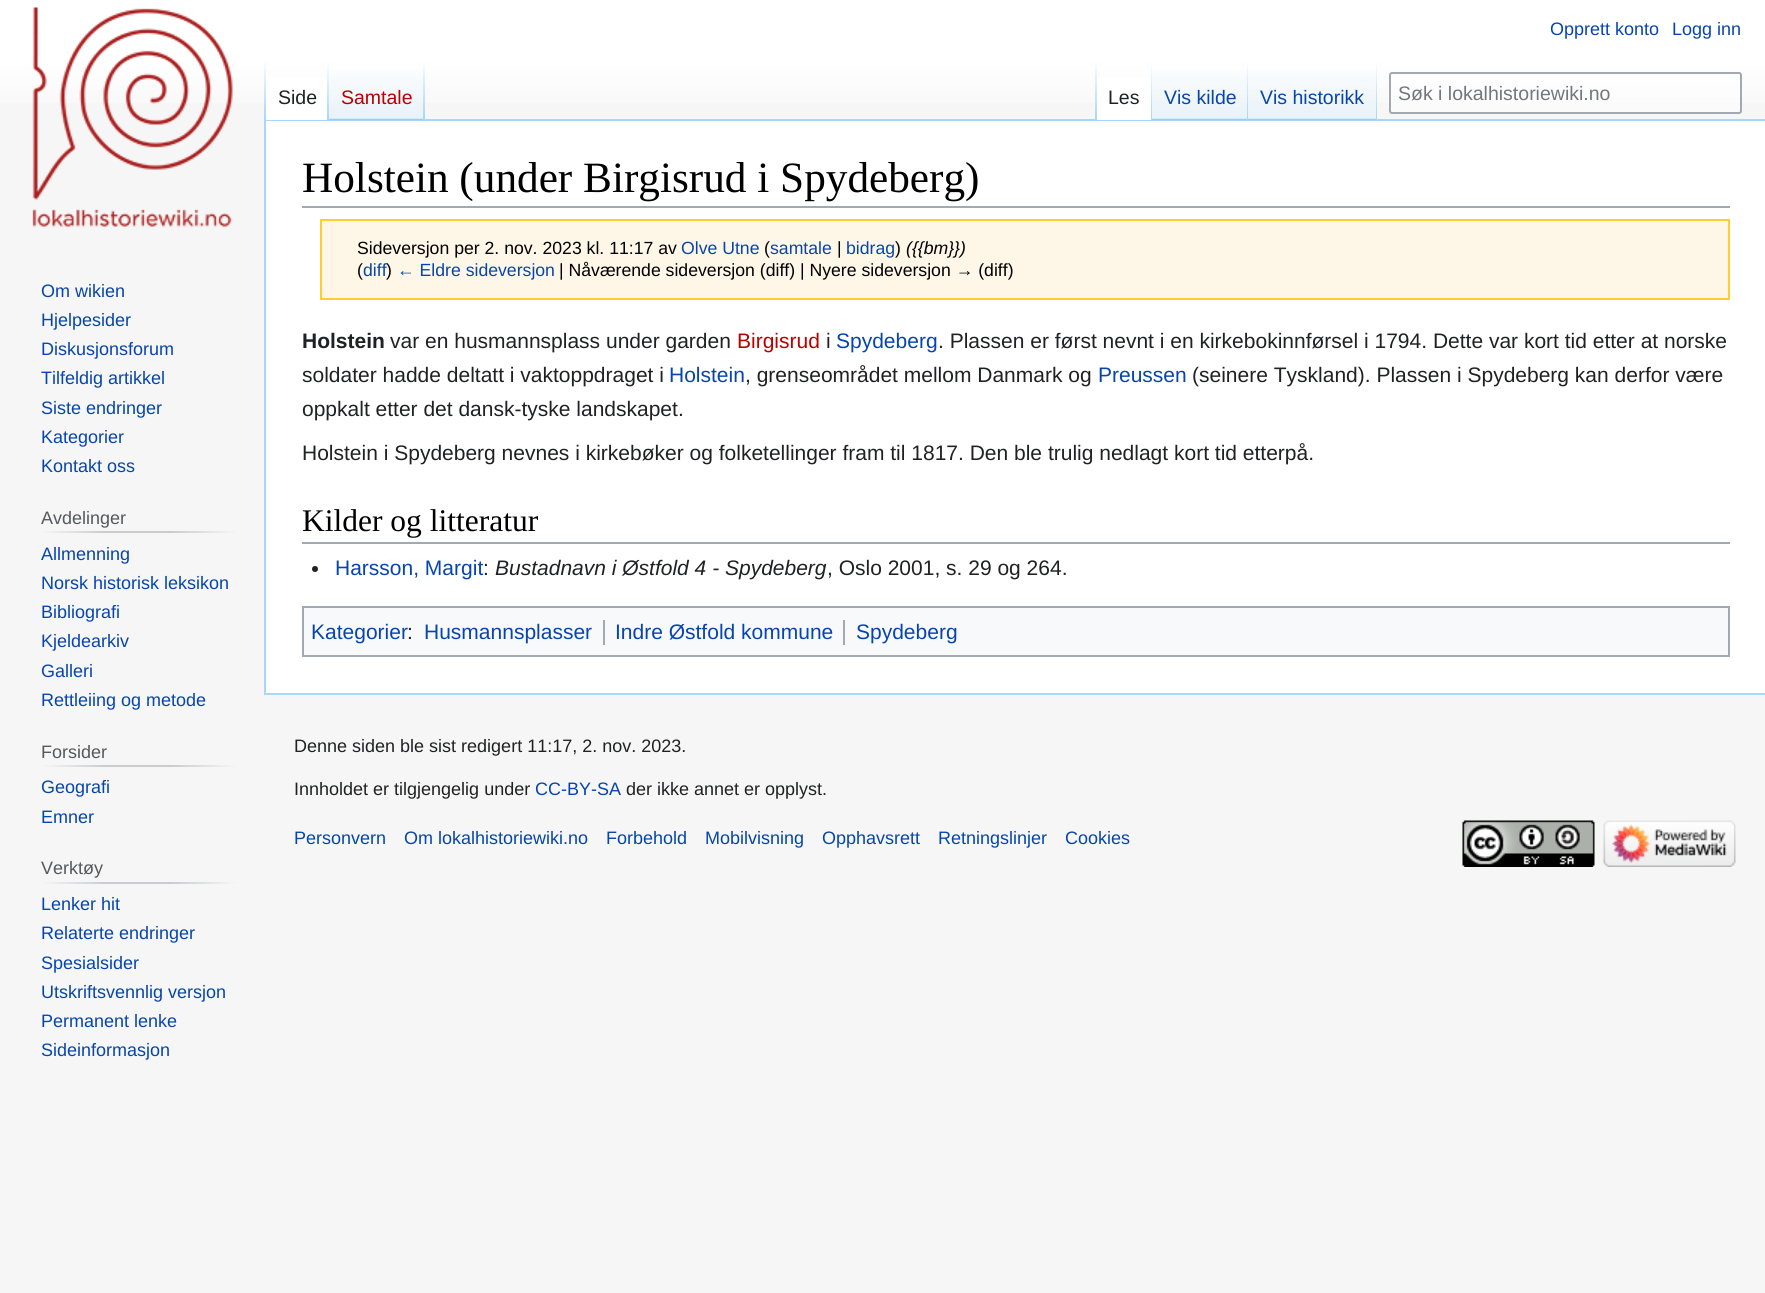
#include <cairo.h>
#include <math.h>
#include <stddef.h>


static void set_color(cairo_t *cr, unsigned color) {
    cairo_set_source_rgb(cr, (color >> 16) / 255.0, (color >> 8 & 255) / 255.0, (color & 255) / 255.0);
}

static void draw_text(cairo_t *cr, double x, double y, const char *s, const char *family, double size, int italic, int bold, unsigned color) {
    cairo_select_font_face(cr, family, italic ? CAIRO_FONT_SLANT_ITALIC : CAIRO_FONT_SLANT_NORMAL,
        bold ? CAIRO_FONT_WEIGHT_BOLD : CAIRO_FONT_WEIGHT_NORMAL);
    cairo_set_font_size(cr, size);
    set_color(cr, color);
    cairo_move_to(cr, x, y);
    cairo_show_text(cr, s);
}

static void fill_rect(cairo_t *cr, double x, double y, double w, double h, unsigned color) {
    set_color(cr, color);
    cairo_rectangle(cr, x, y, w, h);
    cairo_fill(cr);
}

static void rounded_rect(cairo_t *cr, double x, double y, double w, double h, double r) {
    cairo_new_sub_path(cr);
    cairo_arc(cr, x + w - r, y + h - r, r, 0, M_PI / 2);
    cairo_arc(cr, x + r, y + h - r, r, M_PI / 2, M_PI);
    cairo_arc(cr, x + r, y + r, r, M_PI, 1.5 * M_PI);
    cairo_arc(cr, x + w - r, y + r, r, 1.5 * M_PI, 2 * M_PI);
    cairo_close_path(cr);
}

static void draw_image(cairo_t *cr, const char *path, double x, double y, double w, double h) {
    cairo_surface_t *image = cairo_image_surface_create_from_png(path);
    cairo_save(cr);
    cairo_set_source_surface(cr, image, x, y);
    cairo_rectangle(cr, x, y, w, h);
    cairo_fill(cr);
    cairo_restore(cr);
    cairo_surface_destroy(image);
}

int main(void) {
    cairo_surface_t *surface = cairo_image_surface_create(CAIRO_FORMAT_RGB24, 1765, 1293);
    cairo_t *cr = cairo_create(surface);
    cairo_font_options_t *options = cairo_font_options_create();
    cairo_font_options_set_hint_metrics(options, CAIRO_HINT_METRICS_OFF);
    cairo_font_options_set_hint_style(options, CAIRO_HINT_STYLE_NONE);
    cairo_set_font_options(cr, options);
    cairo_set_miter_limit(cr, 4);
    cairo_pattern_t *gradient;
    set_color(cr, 0xF6F6F6);
    cairo_paint(cr);
    gradient = cairo_pattern_create_linear(883, 0, 883, 120);
    cairo_pattern_add_color_stop_rgba(gradient, 0.5, 1, 1, 1, 1);
    cairo_pattern_add_color_stop_rgba(gradient, 1, 0.965, 0.965, 0.965, 1);
    cairo_set_source(cr, gradient);
    cairo_pattern_destroy(gradient);
    cairo_rectangle(cr, 0, 0, 1765, 103);
    cairo_fill(cr);
    draw_text(cr, 1550, 35, "Opprett konto", "Liberation Sans", 18, 0, 0, 0x0645AD);
    draw_text(cr, 1672, 35, "Logg inn", "Liberation Sans", 18, 0, 0, 0x0645AD);
    fill_rect(cr, 264, 119, 1501, 2, 0xA7D7F9);
    fill_rect(cr, 264, 693, 1501, 2, 0xA7D7F9);
    fill_rect(cr, 264, 119, 2, 576, 0xA7D7F9);
    gradient = cairo_pattern_create_linear(265, 60, 265, 120);
    cairo_pattern_add_color_stop_rgba(gradient, 0, 0.655, 0.843, 0.976, 0);
    cairo_pattern_add_color_stop_rgba(gradient, 1, 0.655, 0.843, 0.976, 1);
    cairo_set_source(cr, gradient);
    cairo_pattern_destroy(gradient);
    cairo_rectangle(cr, 264, 60, 2, 60);
    cairo_fill(cr);
    fill_rect(cr, 266, 77, 61, 43, 0xFFFFFF);
    gradient = cairo_pattern_create_linear(328, 60, 328, 120);
    cairo_pattern_add_color_stop_rgba(gradient, 0, 1, 1, 1, 1);
    cairo_pattern_add_color_stop_rgba(gradient, 1, 0.655, 0.843, 0.976, 1);
    cairo_set_source(cr, gradient);
    cairo_pattern_destroy(gradient);
    cairo_rectangle(cr, 327, 60, 2, 60);
    cairo_fill(cr);
    draw_text(cr, 278, 104, "Side", "Liberation Sans", 19.5, 0, 0, 0x202122);
    gradient = cairo_pattern_create_linear(377, 120, 377, 60);
    cairo_pattern_add_color_stop_rgba(gradient, 0, 0.467, 0.757, 0.965, 1);
    cairo_pattern_add_color_stop_rgba(gradient, 0.03, 0.91, 0.949, 0.973, 1);
    cairo_pattern_add_color_stop_rgba(gradient, 1, 1, 1, 1, 1);
    cairo_set_source(cr, gradient);
    cairo_pattern_destroy(gradient);
    cairo_rectangle(cr, 329, 69, 96, 51);
    cairo_fill(cr);
    gradient = cairo_pattern_create_linear(424, 60, 424, 120);
    cairo_pattern_add_color_stop_rgba(gradient, 0, 0.655, 0.843, 0.976, 0);
    cairo_pattern_add_color_stop_rgba(gradient, 1, 0.655, 0.843, 0.976, 1);
    cairo_set_source(cr, gradient);
    cairo_pattern_destroy(gradient);
    cairo_rectangle(cr, 423, 60, 2, 60);
    cairo_fill(cr);
    draw_text(cr, 341, 104, "Samtale", "Liberation Sans", 19.5, 0, 0, 0xBA0000);
    gradient = cairo_pattern_create_linear(1096, 60, 1096, 120);
    cairo_pattern_add_color_stop_rgba(gradient, 0, 0.655, 0.843, 0.976, 0);
    cairo_pattern_add_color_stop_rgba(gradient, 1, 0.655, 0.843, 0.976, 1);
    cairo_set_source(cr, gradient);
    cairo_pattern_destroy(gradient);
    cairo_rectangle(cr, 1095, 60, 2, 60);
    cairo_fill(cr);
    fill_rect(cr, 1097, 77, 54, 43, 0xFFFFFF);
    gradient = cairo_pattern_create_linear(1151, 60, 1151, 120);
    cairo_pattern_add_color_stop_rgba(gradient, 0, 1, 1, 1, 1);
    cairo_pattern_add_color_stop_rgba(gradient, 1, 0.655, 0.843, 0.976, 1);
    cairo_set_source(cr, gradient);
    cairo_pattern_destroy(gradient);
    cairo_rectangle(cr, 1151, 60, 1, 60);
    cairo_fill(cr);
    draw_text(cr, 1108, 104, "Les", "Liberation Sans", 19.5, 0, 0, 0x202122);
    gradient = cairo_pattern_create_linear(1200, 120, 1200, 60);
    cairo_pattern_add_color_stop_rgba(gradient, 0, 0.467, 0.757, 0.965, 1);
    cairo_pattern_add_color_stop_rgba(gradient, 0.03, 0.91, 0.949, 0.973, 1);
    cairo_pattern_add_color_stop_rgba(gradient, 1, 1, 1, 1, 1);
    cairo_set_source(cr, gradient);
    cairo_pattern_destroy(gradient);
    cairo_rectangle(cr, 1152, 69, 96, 51);
    cairo_fill(cr);
    gradient = cairo_pattern_create_linear(1247, 60, 1247, 120);
    cairo_pattern_add_color_stop_rgba(gradient, 0, 0.655, 0.843, 0.976, 0);
    cairo_pattern_add_color_stop_rgba(gradient, 1, 0.655, 0.843, 0.976, 1);
    cairo_set_source(cr, gradient);
    cairo_pattern_destroy(gradient);
    cairo_rectangle(cr, 1247, 60, 1, 60);
    cairo_fill(cr);
    draw_text(cr, 1164, 104, "Vis kilde", "Liberation Sans", 19.5, 0, 0, 0x0645AD);
    gradient = cairo_pattern_create_linear(1313, 120, 1313, 60);
    cairo_pattern_add_color_stop_rgba(gradient, 0, 0.467, 0.757, 0.965, 1);
    cairo_pattern_add_color_stop_rgba(gradient, 0.03, 0.91, 0.949, 0.973, 1);
    cairo_pattern_add_color_stop_rgba(gradient, 1, 1, 1, 1, 1);
    cairo_set_source(cr, gradient);
    cairo_pattern_destroy(gradient);
    cairo_rectangle(cr, 1248, 69, 129, 51);
    cairo_fill(cr);
    gradient = cairo_pattern_create_linear(1376, 60, 1376, 120);
    cairo_pattern_add_color_stop_rgba(gradient, 0, 0.655, 0.843, 0.976, 0);
    cairo_pattern_add_color_stop_rgba(gradient, 1, 0.655, 0.843, 0.976, 1);
    cairo_set_source(cr, gradient);
    cairo_pattern_destroy(gradient);
    cairo_rectangle(cr, 1376, 60, 1, 60);
    cairo_fill(cr);
    draw_text(cr, 1260, 104, "Vis historikk", "Liberation Sans", 19.5, 0, 0, 0x0645AD);
    cairo_set_source_rgba(cr, 1, 1, 1, 0.5);
    rounded_rect(cr, 1390, 73, 351, 40, 2);
    cairo_fill_preserve(cr);
    set_color(cr, 0xA2A9B1);
    cairo_stroke(cr);
    draw_text(cr, 1398, 100, "Søk i lokalhistoriewiki.no", "Liberation Sans", 19.5, 0, 0, 0x72777D);
    draw_image(cr, "assets/img1.png", 32, 7, 201, 220);
    draw_text(cr, 41, 297, "Om wikien", "Liberation Sans", 18, 0, 0, 0x0645AD);
    draw_text(cr, 41, 326, "Hjelpesider", "Liberation Sans", 18, 0, 0, 0x0645AD);
    draw_text(cr, 41, 355, "Diskusjonsforum", "Liberation Sans", 18, 0, 0, 0x0645AD);
    draw_text(cr, 41, 384, "Tilfeldig artikkel", "Liberation Sans", 18, 0, 0, 0x0645AD);
    draw_text(cr, 41, 414, "Siste endringer", "Liberation Sans", 18, 0, 0, 0x0645AD);
    draw_text(cr, 41, 443, "Kategorier", "Liberation Sans", 18, 0, 0, 0x0645AD);
    draw_text(cr, 41, 472, "Kontakt oss", "Liberation Sans", 18, 0, 0, 0x0645AD);
    gradient = cairo_pattern_create_linear(41, 532, 237, 532);
    cairo_pattern_add_color_stop_rgba(gradient, 0, 0.965, 0.965, 0.965, 1);
    cairo_pattern_add_color_stop_rgba(gradient, 0.33, 0.784, 0.8, 0.82, 1);
    cairo_pattern_add_color_stop_rgba(gradient, 0.66, 0.784, 0.8, 0.82, 1);
    cairo_pattern_add_color_stop_rgba(gradient, 1, 0.965, 0.965, 0.965, 1);
    cairo_set_source(cr, gradient);
    cairo_pattern_destroy(gradient);
    cairo_rectangle(cr, 41, 531, 196, 2);
    cairo_fill(cr);
    draw_text(cr, 41, 524, "Avdelinger", "Liberation Sans", 18, 0, 0, 0x54595D);
    draw_text(cr, 41, 560, "Allmenning", "Liberation Sans", 18, 0, 0, 0x0645AD);
    draw_text(cr, 41, 589, "Norsk historisk leksikon", "Liberation Sans", 18, 0, 0, 0x0645AD);
    draw_text(cr, 41, 618, "Bibliografi", "Liberation Sans", 18, 0, 0, 0x0645AD);
    draw_text(cr, 41, 647, "Kjeldearkiv", "Liberation Sans", 18, 0, 0, 0x0645AD);
    draw_text(cr, 41, 677, "Galleri", "Liberation Sans", 18, 0, 0, 0x0645AD);
    draw_text(cr, 41, 706, "Rettleiing og metode", "Liberation Sans", 18, 0, 0, 0x0645AD);
    gradient = cairo_pattern_create_linear(41, 766, 237, 766);
    cairo_pattern_add_color_stop_rgba(gradient, 0, 0.965, 0.965, 0.965, 1);
    cairo_pattern_add_color_stop_rgba(gradient, 0.33, 0.784, 0.8, 0.82, 1);
    cairo_pattern_add_color_stop_rgba(gradient, 0.66, 0.784, 0.8, 0.82, 1);
    cairo_pattern_add_color_stop_rgba(gradient, 1, 0.965, 0.965, 0.965, 1);
    cairo_set_source(cr, gradient);
    cairo_pattern_destroy(gradient);
    cairo_rectangle(cr, 41, 765, 196, 2);
    cairo_fill(cr);
    draw_text(cr, 41, 758, "Forsider", "Liberation Sans", 18, 0, 0, 0x54595D);
    draw_text(cr, 41, 793, "Geografi", "Liberation Sans", 18, 0, 0, 0x0645AD);
    draw_text(cr, 41, 823, "Emner", "Liberation Sans", 18, 0, 0, 0x0645AD);
    gradient = cairo_pattern_create_linear(41, 883, 237, 883);
    cairo_pattern_add_color_stop_rgba(gradient, 0, 0.965, 0.965, 0.965, 1);
    cairo_pattern_add_color_stop_rgba(gradient, 0.33, 0.784, 0.8, 0.82, 1);
    cairo_pattern_add_color_stop_rgba(gradient, 0.66, 0.784, 0.8, 0.82, 1);
    cairo_pattern_add_color_stop_rgba(gradient, 1, 0.965, 0.965, 0.965, 1);
    cairo_set_source(cr, gradient);
    cairo_pattern_destroy(gradient);
    cairo_rectangle(cr, 41, 882, 196, 2);
    cairo_fill(cr);
    draw_text(cr, 41, 874, "Verktøy", "Liberation Sans", 18, 0, 0, 0x54595D);
    draw_text(cr, 41, 910, "Lenker hit", "Liberation Sans", 18, 0, 0, 0x0645AD);
    draw_text(cr, 41, 939, "Relaterte endringer", "Liberation Sans", 18, 0, 0, 0x0645AD);
    draw_text(cr, 41, 969, "Spesialsider", "Liberation Sans", 18, 0, 0, 0x0645AD);
    draw_text(cr, 41, 998, "Utskriftsvennlig versjon", "Liberation Sans", 18, 0, 0, 0x0645AD);
    draw_text(cr, 41, 1027, "Permanent lenke", "Liberation Sans", 18, 0, 0, 0x0645AD);
    draw_text(cr, 41, 1056, "Sideinformasjon", "Liberation Sans", 18, 0, 0, 0x0645AD);
    fill_rect(cr, 266, 121, 1499, 572, 0xFFFFFF);
    fill_rect(cr, 302, 206, 1428, 2, 0xA2A9B1);
    draw_text(cr, 302, 192, "Holstein (under Birgisrud i Spydeberg)", "Liberation Serif", 43.25, 0, 0, 0x000000);
    set_color(cr, 0xFEF6E7);
    cairo_rectangle(cr, 321, 220, 1408, 79);
    cairo_fill_preserve(cr);
    set_color(cr, 0xFFCC33);
    cairo_stroke(cr);
    draw_text(cr, 357, 254, "Sideversjon per 2. nov. 2023 kl. 11:17 av", "Liberation Sans", 17.65, 0, 0, 0x000000);
    draw_text(cr, 681, 254, "Olve Utne", "Liberation Sans", 17.65, 0, 0, 0x0645AD);
    draw_text(cr, 764, 254, "(", "Liberation Sans", 17.65, 0, 0, 0x000000);
    draw_text(cr, 770, 254, "samtale", "Liberation Sans", 17.65, 0, 0, 0x0645AD);
    draw_text(cr, 837, 254, "|", "Liberation Sans", 17.65, 0, 0, 0x000000);
    draw_text(cr, 846, 254, "bidrag", "Liberation Sans", 17.65, 0, 0, 0x0645AD);
    draw_text(cr, 895, 254, ")", "Liberation Sans", 17.65, 0, 0, 0x000000);
    draw_text(cr, 906, 254, "({{bm}})", "Liberation Sans", 17.65, 1, 0, 0x000000);
    draw_text(cr, 357, 276, "(", "Liberation Sans", 17.65, 0, 0, 0x000000);
    draw_text(cr, 363, 276, "diff", "Liberation Sans", 17.65, 0, 0, 0x0645AD);
    draw_text(cr, 386, 276, ")", "Liberation Sans", 17.65, 0, 0, 0x000000);
    draw_text(cr, 397, 276, "← Eldre sideversjon", "Liberation Sans", 17.65, 0, 0, 0x0645AD);
    draw_text(cr, 559, 276, "| Nåværende sideversjon (diff) | Nyere sideversjon → (diff)", "Liberation Sans", 17.65, 0, 0, 0x000000);
    draw_text(cr, 302, 348, "Holstein", "Liberation Sans", 21, 0, 1, 0x202122);
    draw_text(cr, 390, 348, "var en husmannsplass under garden", "Liberation Sans", 21, 0, 0, 0x202122);
    draw_text(cr, 737, 348, "Birgisrud", "Liberation Sans", 21, 0, 0, 0xBA0000);
    draw_text(cr, 826, 348, "i", "Liberation Sans", 21, 0, 0, 0x202122);
    draw_text(cr, 836, 348, "Spydeberg", "Liberation Sans", 21, 0, 0, 0x0645AD);
    draw_text(cr, 938, 348, ". Plassen er først nevnt i en kirkebokinnførsel i 1794. Dette var kort tid etter at norske", "Liberation Sans", 21, 0, 0, 0x202122);
    draw_text(cr, 302, 382, "soldater hadde deltatt i vaktoppdraget i", "Liberation Sans", 21, 0, 0, 0x202122);
    draw_text(cr, 669, 382, "Holstein", "Liberation Sans", 21, 0, 0, 0x0645AD);
    draw_text(cr, 745, 382, ", grenseområdet mellom Danmark og", "Liberation Sans", 21, 0, 0, 0x202122);
    draw_text(cr, 1098, 382, "Preussen", "Liberation Sans", 21, 0, 0, 0x0645AD);
    draw_text(cr, 1192, 382, "(seinere Tyskland). Plassen i Spydeberg kan derfor være", "Liberation Sans", 21, 0, 0, 0x202122);
    draw_text(cr, 302, 416, "oppkalt etter det dansk-tyske landskapet.", "Liberation Sans", 21, 0, 0, 0x202122);
    draw_text(cr, 302, 460, "Holstein i Spydeberg nevnes i kirkebøker og folketellinger fram til 1817. Den ble trulig nedlagt kort tid etterpå.", "Liberation Sans", 21, 0, 0, 0x202122);
    fill_rect(cr, 302, 542, 1428, 2, 0xA2A9B1);
    draw_text(cr, 302, 531, "Kilder og litteratur", "Liberation Serif", 31.5, 0, 0, 0x000000);
    set_color(cr, 0x202122);
    cairo_new_path(cr);
    cairo_arc(cr, 315, 569, 3, 0, 2 * M_PI);
    cairo_fill(cr);
    draw_text(cr, 335, 575, "Harsson, Margit", "Liberation Sans", 21, 0, 0, 0x0645AD);
    draw_text(cr, 483, 575, ":", "Liberation Sans", 21, 0, 0, 0x202122);
    draw_text(cr, 495, 575, "Bustadnavn i Østfold 4 - Spydeberg", "Liberation Sans", 21, 1, 0, 0x202122);
    draw_text(cr, 827, 575, ", Oslo 2001, s. 29 og 264.", "Liberation Sans", 21, 0, 0, 0x202122);
    set_color(cr, 0xF8F9FA);
    cairo_rectangle(cr, 303, 607, 1426, 49);
    cairo_fill_preserve(cr);
    set_color(cr, 0xA2A9B1);
    cairo_stroke(cr);
    draw_text(cr, 311, 639, "Kategorier", "Liberation Sans", 21, 0, 0, 0x0645AD);
    draw_text(cr, 407, 639, ":", "Liberation Sans", 21, 0, 0, 0x202122);
    draw_text(cr, 424, 639, "Husmannsplasser", "Liberation Sans", 21, 0, 0, 0x0645AD);
    fill_rect(cr, 603, 620, 2, 25, 0xA2A9B1);
    draw_text(cr, 615, 639, "Indre Østfold kommune", "Liberation Sans", 21, 0, 0, 0x0645AD);
    fill_rect(cr, 843, 620, 2, 25, 0xA2A9B1);
    draw_text(cr, 856, 639, "Spydeberg", "Liberation Sans", 21, 0, 0, 0x0645AD);
    draw_text(cr, 294, 752, "Denne siden ble sist redigert 11:17, 2. nov. 2023.", "Liberation Sans", 18, 0, 0, 0x202122);
    draw_text(cr, 294, 795, "Innholdet er tilgjengelig under", "Liberation Sans", 18, 0, 0, 0x202122);
    draw_text(cr, 535, 795, "CC-BY-SA", "Liberation Sans", 18, 0, 0, 0x0645AD);
    draw_text(cr, 626, 795, "der ikke annet er opplyst.", "Liberation Sans", 18, 0, 0, 0x202122);
    draw_text(cr, 294, 844, "Personvern", "Liberation Sans", 18, 0, 0, 0x0645AD);
    draw_text(cr, 404, 844, "Om lokalhistoriewiki.no", "Liberation Sans", 18, 0, 0, 0x0645AD);
    draw_text(cr, 606, 844, "Forbehold", "Liberation Sans", 18, 0, 0, 0x0645AD);
    draw_text(cr, 705, 844, "Mobilvisning", "Liberation Sans", 18, 0, 0, 0x0645AD);
    draw_text(cr, 822, 844, "Opphavsrett", "Liberation Sans", 18, 0, 0, 0x0645AD);
    draw_text(cr, 938, 844, "Retningslinjer", "Liberation Sans", 18, 0, 0, 0x0645AD);
    draw_text(cr, 1065, 844, "Cookies", "Liberation Sans", 18, 0, 0, 0x0645AD);
    draw_image(cr, "assets/img2.png", 1462, 820, 133, 47);
    draw_image(cr, "assets/img3.png", 1603, 820, 133, 47);
    cairo_surface_write_to_png(surface, "output.png");
    cairo_font_options_destroy(options);
    cairo_destroy(cr);
    cairo_surface_destroy(surface);
    return 0;
}
